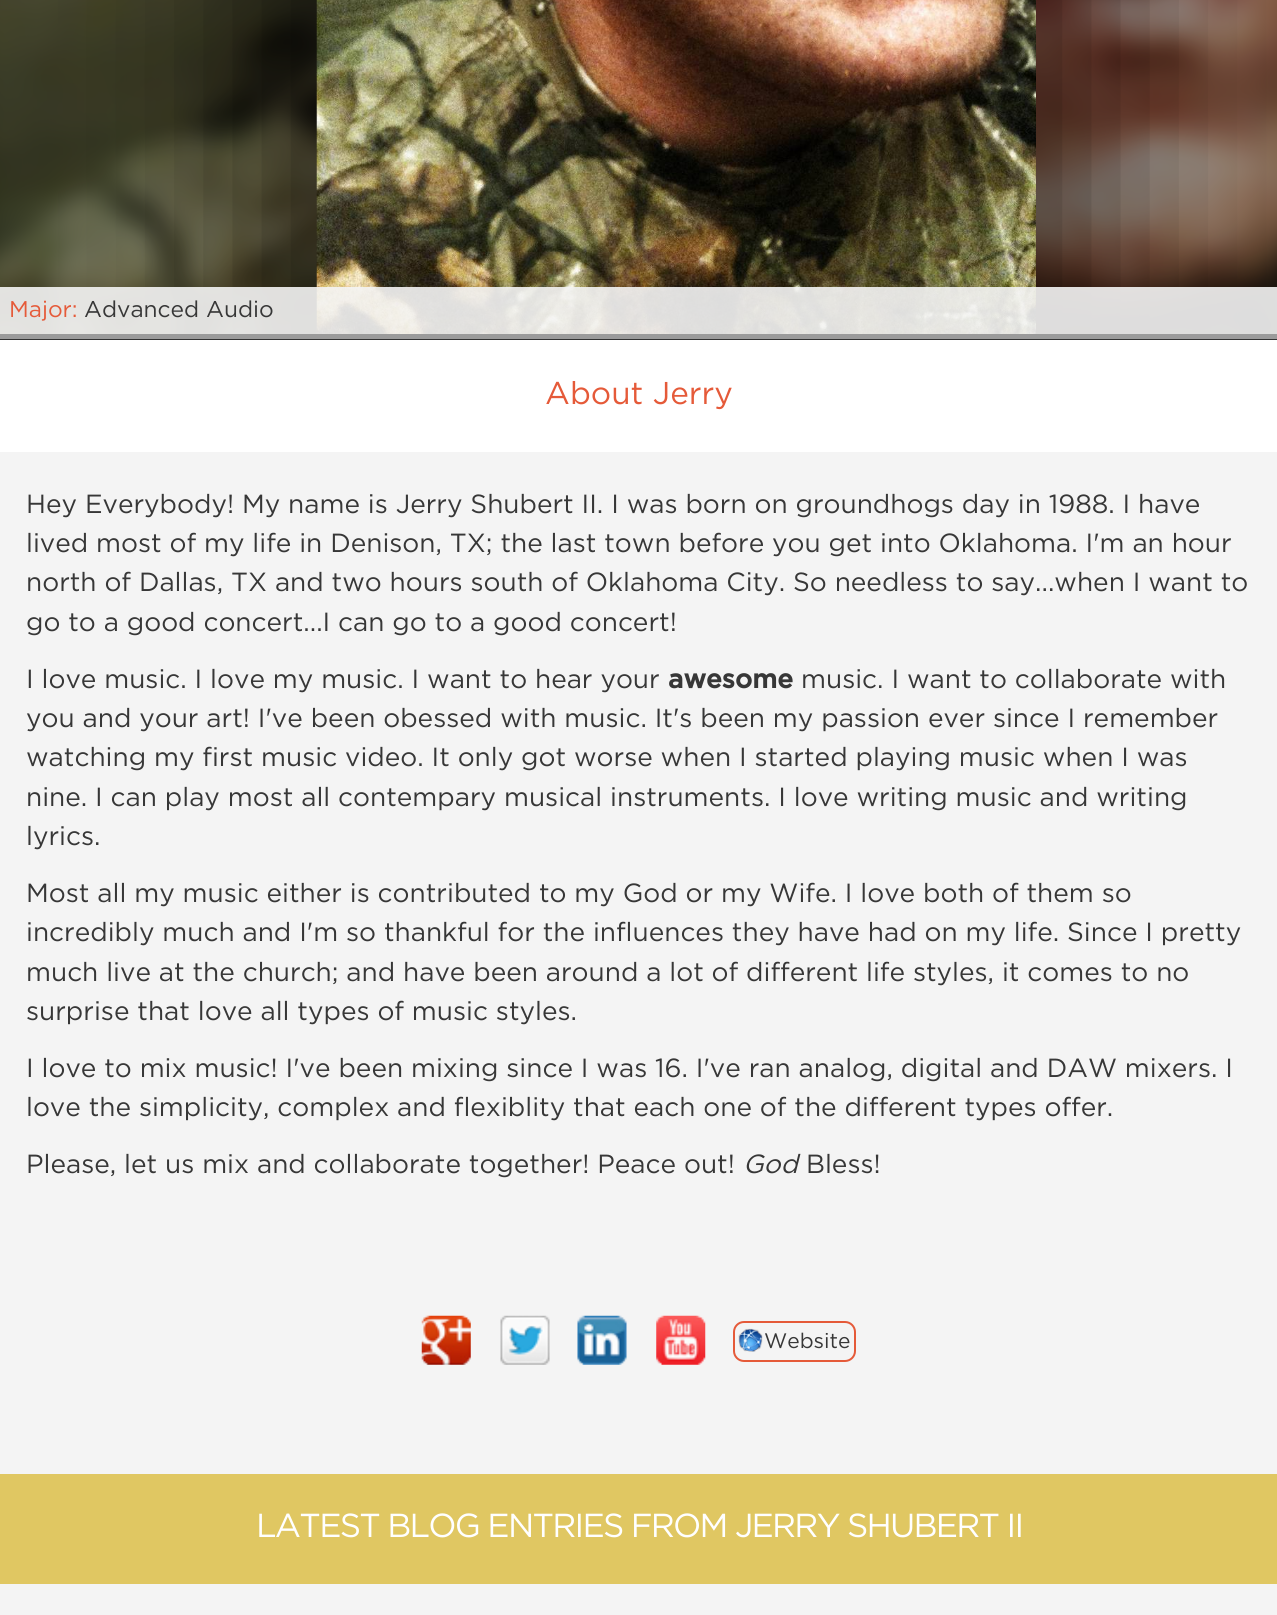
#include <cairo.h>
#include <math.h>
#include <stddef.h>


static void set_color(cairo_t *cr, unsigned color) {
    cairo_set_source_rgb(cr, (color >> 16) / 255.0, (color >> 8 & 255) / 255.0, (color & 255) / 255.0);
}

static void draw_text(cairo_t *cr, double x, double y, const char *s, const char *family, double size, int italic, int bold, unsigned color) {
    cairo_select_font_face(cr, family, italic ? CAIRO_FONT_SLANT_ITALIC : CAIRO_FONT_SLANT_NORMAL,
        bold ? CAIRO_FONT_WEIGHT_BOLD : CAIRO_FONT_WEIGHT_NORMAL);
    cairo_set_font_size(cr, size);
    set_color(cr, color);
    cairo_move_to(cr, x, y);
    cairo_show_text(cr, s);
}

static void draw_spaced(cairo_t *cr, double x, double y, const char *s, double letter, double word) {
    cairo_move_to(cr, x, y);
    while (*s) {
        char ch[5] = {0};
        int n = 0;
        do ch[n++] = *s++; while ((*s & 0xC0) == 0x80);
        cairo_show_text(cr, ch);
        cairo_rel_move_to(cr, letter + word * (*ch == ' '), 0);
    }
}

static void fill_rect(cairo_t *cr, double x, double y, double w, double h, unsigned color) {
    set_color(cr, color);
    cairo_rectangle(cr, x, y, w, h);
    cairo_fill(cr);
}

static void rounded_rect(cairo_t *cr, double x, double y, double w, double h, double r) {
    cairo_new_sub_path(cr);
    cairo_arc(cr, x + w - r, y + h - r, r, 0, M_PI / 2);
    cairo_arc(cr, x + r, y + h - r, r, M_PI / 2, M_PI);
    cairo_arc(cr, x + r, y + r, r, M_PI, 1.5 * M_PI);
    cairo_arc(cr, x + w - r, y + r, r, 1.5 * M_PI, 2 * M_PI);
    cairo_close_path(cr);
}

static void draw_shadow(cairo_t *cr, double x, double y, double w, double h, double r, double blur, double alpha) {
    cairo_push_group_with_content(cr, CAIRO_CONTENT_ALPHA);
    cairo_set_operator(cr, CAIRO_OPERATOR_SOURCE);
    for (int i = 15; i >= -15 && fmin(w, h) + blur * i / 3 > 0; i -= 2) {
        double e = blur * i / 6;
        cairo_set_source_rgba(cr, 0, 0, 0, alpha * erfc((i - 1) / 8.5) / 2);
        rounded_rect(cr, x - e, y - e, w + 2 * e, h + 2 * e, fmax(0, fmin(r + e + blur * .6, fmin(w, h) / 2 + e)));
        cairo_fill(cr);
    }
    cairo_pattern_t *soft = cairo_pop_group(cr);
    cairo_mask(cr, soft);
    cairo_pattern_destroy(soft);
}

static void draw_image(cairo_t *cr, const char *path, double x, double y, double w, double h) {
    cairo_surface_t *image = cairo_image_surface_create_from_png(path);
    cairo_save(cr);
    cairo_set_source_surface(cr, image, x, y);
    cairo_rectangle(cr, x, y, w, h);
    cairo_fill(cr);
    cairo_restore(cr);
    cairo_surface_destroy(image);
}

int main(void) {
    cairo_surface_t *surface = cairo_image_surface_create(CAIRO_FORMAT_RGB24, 1277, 1615);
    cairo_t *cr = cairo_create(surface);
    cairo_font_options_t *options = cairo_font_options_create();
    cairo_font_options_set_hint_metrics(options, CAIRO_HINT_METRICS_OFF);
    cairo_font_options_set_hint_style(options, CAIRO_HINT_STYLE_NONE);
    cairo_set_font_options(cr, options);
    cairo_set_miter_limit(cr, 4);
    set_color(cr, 0xE0C762);
    cairo_paint(cr);
    fill_rect(cr, 0, 452, 1277, 1022, 0xF4F4F4);
    fill_rect(cr, 0, 0, 1277, 340, 0x333333);
    fill_rect(cr, 0, 334, 1277, 5, 0x9B9B9B);
    draw_image(cr, "assets/img1.png", 0, 0, 1277, 334);
    fill_rect(cr, 0, 340, 1277, 112, 0xFFFFFF);
    cairo_save(cr);
    cairo_rectangle(cr, 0, 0, 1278, 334);
    cairo_clip(cr);
    set_color(cr, 0x000000);
    draw_shadow(cr, 247, -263, 859, 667, 0, 87.5, 0.5);
    cairo_restore(cr);
    draw_image(cr, "assets/img2.png", 316, 0, 720, 334);
    cairo_set_source_rgba(cr, 0.957, 0.957, 0.957, 0.9);
    cairo_rectangle(cr, 0, 287, 1277, 47);
    cairo_fill(cr);
    draw_text(cr, 9, 317, "Major:", "Gotham", 22.75, 0, 0, 0xE55A39);
    draw_text(cr, 84, 317, "Advanced Audio", "Gotham", 22.75, 0, 0, 0x373737);
    draw_text(cr, 545, 404, "About Jerry", "Gotham", 31.5, 0, 0, 0xE55A39);
    draw_text(cr, 26, 513, "Hey Everybody! My name is Jerry Shubert II. I was born on groundhogs day in 1988. I have", "Gotham", 26.25, 0, 0, 0x373737);
    draw_text(cr, 26, 552, "lived most of my life in Denison, TX; the last town before you get into Oklahoma. I'm an hour", "Gotham", 26.25, 0, 0, 0x373737);
    draw_text(cr, 26, 591, "north of Dallas, TX and two hours south of Oklahoma City. So needless to say...when I want to", "Gotham", 26.25, 0, 0, 0x373737);
    draw_text(cr, 26, 631, "go to a good concert...I can go to a good concert!", "Gotham", 26.25, 0, 0, 0x373737);
    draw_text(cr, 26, 688, "I love music. I love my music. I want to hear your", "Gotham", 26.25, 0, 0, 0x373737);
    draw_text(cr, 668, 688, "awesome", "Gotham", 26.25, 0, 1, 0x373737);
    draw_text(cr, 801, 688, "music. I want to collaborate with", "Gotham", 26.25, 0, 0, 0x373737);
    draw_text(cr, 26, 727, "you and your art! I've been obessed with music. It's been my passion ever since I remember", "Gotham", 26.25, 0, 0, 0x373737);
    draw_text(cr, 26, 766, "watching my first music video. It only got worse when I started playing music when I was", "Gotham", 26.25, 0, 0, 0x373737);
    draw_text(cr, 26, 806, "nine. I can play most all contempary musical instruments. I love writing music and writing", "Gotham", 26.25, 0, 0, 0x373737);
    draw_text(cr, 26, 845, "lyrics.", "Gotham", 26.25, 0, 0, 0x373737);
    draw_text(cr, 26, 902, "Most all my music either is contributed to my God or my Wife. I love both of them so", "Gotham", 26.25, 0, 0, 0x373737);
    draw_text(cr, 26, 941, "incredibly much and I'm so thankful for the influences they have had on my life. Since I pretty", "Gotham", 26.25, 0, 0, 0x373737);
    draw_text(cr, 26, 981, "much live at the church; and have been around a lot of different life styles, it comes to no", "Gotham", 26.25, 0, 0, 0x373737);
    draw_text(cr, 26, 1020, "surprise that love all types of music styles.", "Gotham", 26.25, 0, 0, 0x373737);
    draw_text(cr, 26, 1077, "I love to mix music! I've been mixing since I was 16. I've ran analog, digital and DAW mixers. I", "Gotham", 26.25, 0, 0, 0x373737);
    draw_text(cr, 26, 1116, "love the simplicity, complex and flexiblity that each one of the different types offer.", "Gotham", 26.25, 0, 0, 0x373737);
    draw_text(cr, 26, 1173, "Please, let us mix and collaborate together! Peace out!", "Gotham", 26.25, 0, 0, 0x373737);
    draw_text(cr, 743, 1173, "God", "Gotham", 26.25, 1, 0, 0x373737);
    draw_text(cr, 806, 1173, "Bless!", "Gotham", 26.25, 0, 0, 0x373737);
    draw_image(cr, "assets/img3.png", 421, 1315, 50, 50);
    draw_image(cr, "assets/img4.png", 500, 1315, 50, 50);
    draw_image(cr, "assets/img5.png", 577, 1315, 50, 50);
    draw_image(cr, "assets/img6.png", 656, 1315, 50, 50);
    rounded_rect(cr, 734, 1322, 121, 39, 10);
    set_color(cr, 0xE55A39);
    cairo_stroke(cr);
    draw_image(cr, "assets/img7.png", 738, 1328, 25, 24);
    draw_text(cr, 764, 1348, "Website", "Gotham", 21, 0, 0, 0x373737);
    cairo_set_font_size(cr, 33.25);
    set_color(cr, 0xFFFFFF);
    draw_spaced(cr, 256, 1537, "LATEST BLOG ENTRIES FROM JERRY SHUBERT II", -1.75, 0);
    fill_rect(cr, 0, 1584, 1277, 31, 0xF4F4F4);
    cairo_surface_write_to_png(surface, "output.png");
    cairo_font_options_destroy(options);
    cairo_destroy(cr);
    cairo_surface_destroy(surface);
    return 0;
}
